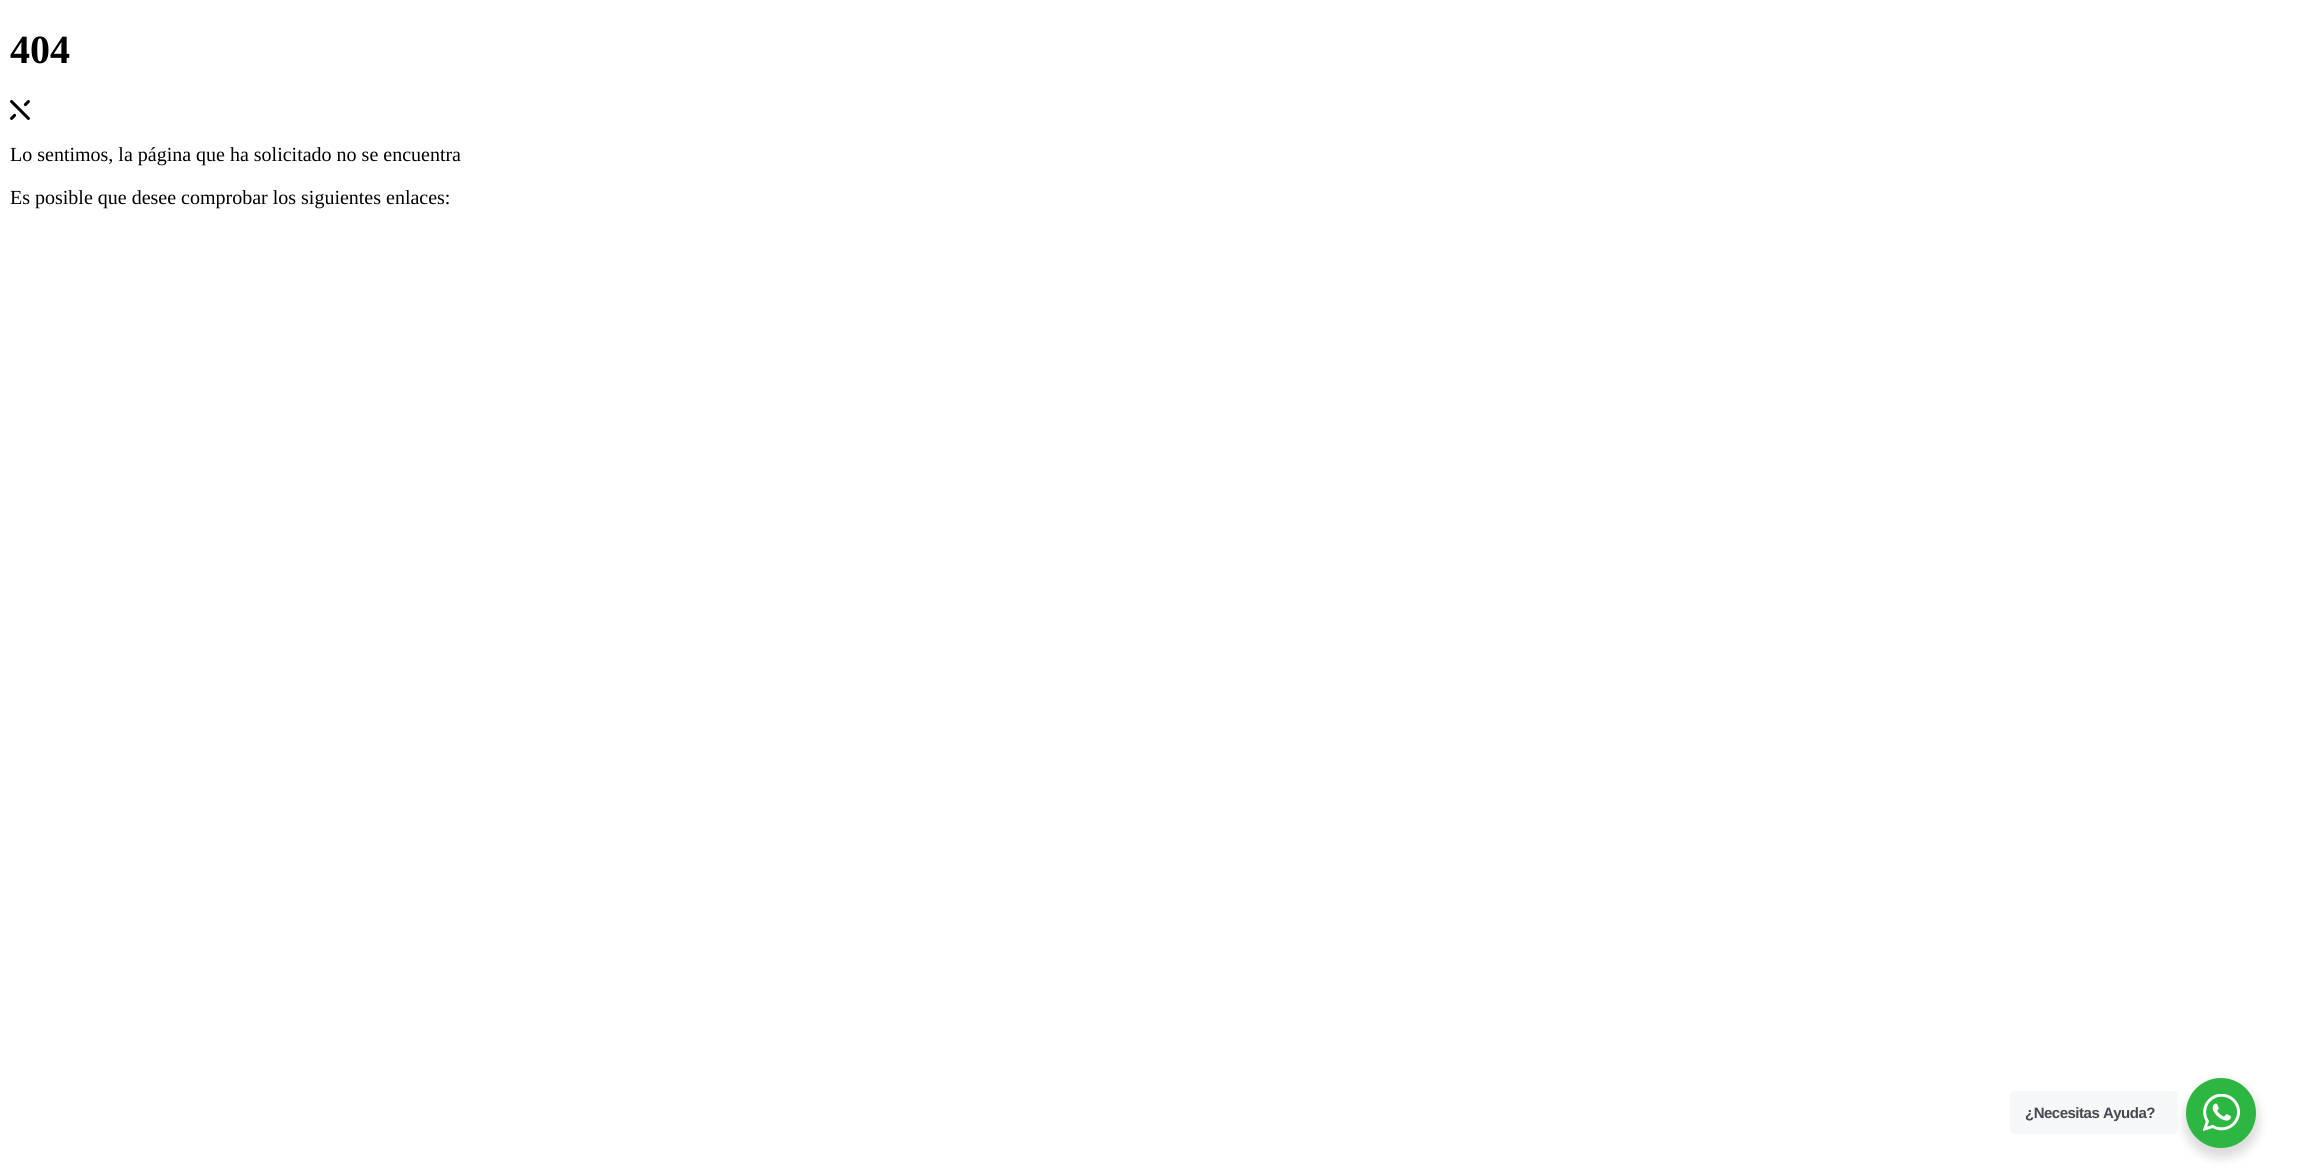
#include <cairo.h>
#include <math.h>
#include <stddef.h>


static void set_color(cairo_t *cr, unsigned color) {
    cairo_set_source_rgb(cr, (color >> 16) / 255.0, (color >> 8 & 255) / 255.0, (color & 255) / 255.0);
}

static void draw_text(cairo_t *cr, double x, double y, const char *s, const char *family, double size, int italic, int bold, unsigned color) {
    cairo_select_font_face(cr, family, italic ? CAIRO_FONT_SLANT_ITALIC : CAIRO_FONT_SLANT_NORMAL,
        bold ? CAIRO_FONT_WEIGHT_BOLD : CAIRO_FONT_WEIGHT_NORMAL);
    cairo_set_font_size(cr, size);
    set_color(cr, color);
    cairo_move_to(cr, x, y);
    cairo_show_text(cr, s);
}

static void draw_spaced(cairo_t *cr, double x, double y, const char *s, double letter, double word) {
    cairo_move_to(cr, x, y);
    while (*s) {
        char ch[5] = {0};
        int n = 0;
        do ch[n++] = *s++; while ((*s & 0xC0) == 0x80);
        cairo_show_text(cr, ch);
        cairo_rel_move_to(cr, letter + word * (*ch == ' '), 0);
    }
}

static void rounded_rect(cairo_t *cr, double x, double y, double w, double h, double r) {
    cairo_new_sub_path(cr);
    cairo_arc(cr, x + w - r, y + h - r, r, 0, M_PI / 2);
    cairo_arc(cr, x + r, y + h - r, r, M_PI / 2, M_PI);
    cairo_arc(cr, x + r, y + r, r, M_PI, 1.5 * M_PI);
    cairo_arc(cr, x + w - r, y + r, r, 1.5 * M_PI, 2 * M_PI);
    cairo_close_path(cr);
}

static void draw_shadow(cairo_t *cr, double x, double y, double w, double h, double r, double blur, double alpha) {
    cairo_push_group_with_content(cr, CAIRO_CONTENT_ALPHA);
    cairo_set_operator(cr, CAIRO_OPERATOR_SOURCE);
    for (int i = 15; i >= -15 && fmin(w, h) + blur * i / 3 > 0; i -= 2) {
        double e = blur * i / 6;
        cairo_set_source_rgba(cr, 0, 0, 0, alpha * erfc((i - 1) / 8.5) / 2);
        rounded_rect(cr, x - e, y - e, w + 2 * e, h + 2 * e, fmax(0, fmin(r + e + blur * .6, fmin(w, h) / 2 + e)));
        cairo_fill(cr);
    }
    cairo_pattern_t *soft = cairo_pop_group(cr);
    cairo_mask(cr, soft);
    cairo_pattern_destroy(soft);
}

static void draw_image(cairo_t *cr, const char *path, double x, double y, double w, double h) {
    cairo_surface_t *image = cairo_image_surface_create_from_png(path);
    cairo_save(cr);
    cairo_set_source_surface(cr, image, x, y);
    cairo_rectangle(cr, x, y, w, h);
    cairo_fill(cr);
    cairo_restore(cr);
    cairo_surface_destroy(image);
}

int main(void) {
    cairo_surface_t *surface = cairo_image_surface_create(CAIRO_FORMAT_RGB24, 2310, 1173);
    cairo_t *cr = cairo_create(surface);
    cairo_font_options_t *options = cairo_font_options_create();
    cairo_font_options_set_hint_metrics(options, CAIRO_HINT_METRICS_OFF);
    cairo_font_options_set_hint_style(options, CAIRO_HINT_STYLE_NONE);
    cairo_set_font_options(cr, options);
    cairo_set_miter_limit(cr, 4);
    set_color(cr, 0xFFFFFF);
    cairo_paint(cr);
    draw_text(cr, 10, 63, "404", "Liberation Serif", 40, 0, 1, 0x000000);
    draw_image(cr, "assets/img1.png", 10, 100, 20, 20);
    draw_text(cr, 10, 161, "Lo sentimos, la página que ha solicitado no se encuentra", "Liberation Serif", 20, 0, 0, 0x000000);
    draw_text(cr, 10, 204, "Es posible que desee comprobar los siguientes enlaces:", "Liberation Serif", 20, 0, 0, 0x000000);
    set_color(cr, 0x000000);
    draw_shadow(cr, 2184, 1083, 75, 75, 37.5, 5, 0.14);
    set_color(cr, 0xF5F7F9);
    rounded_rect(cr, 2010, 1091, 168, 43, 5);
    cairo_fill(cr);
    cairo_select_font_face(cr, "Liberation Sans", CAIRO_FONT_SLANT_NORMAL, CAIRO_FONT_WEIGHT_BOLD);
    cairo_set_font_size(cr, 15);
    set_color(cr, 0x43474E);
    draw_spaced(cr, 2025, 1118, "¿Necesitas Ayuda?", -0.5, 0);
    set_color(cr, 0x2DB742);
    cairo_new_path(cr);
    cairo_arc(cr, 2221, 1113, 35, 0, 2 * M_PI);
    cairo_fill(cr);
    draw_image(cr, "assets/img2.png", 2203, 1094, 37, 37);
    cairo_surface_write_to_png(surface, "output.png");
    cairo_font_options_destroy(options);
    cairo_destroy(cr);
    cairo_surface_destroy(surface);
    return 0;
}
